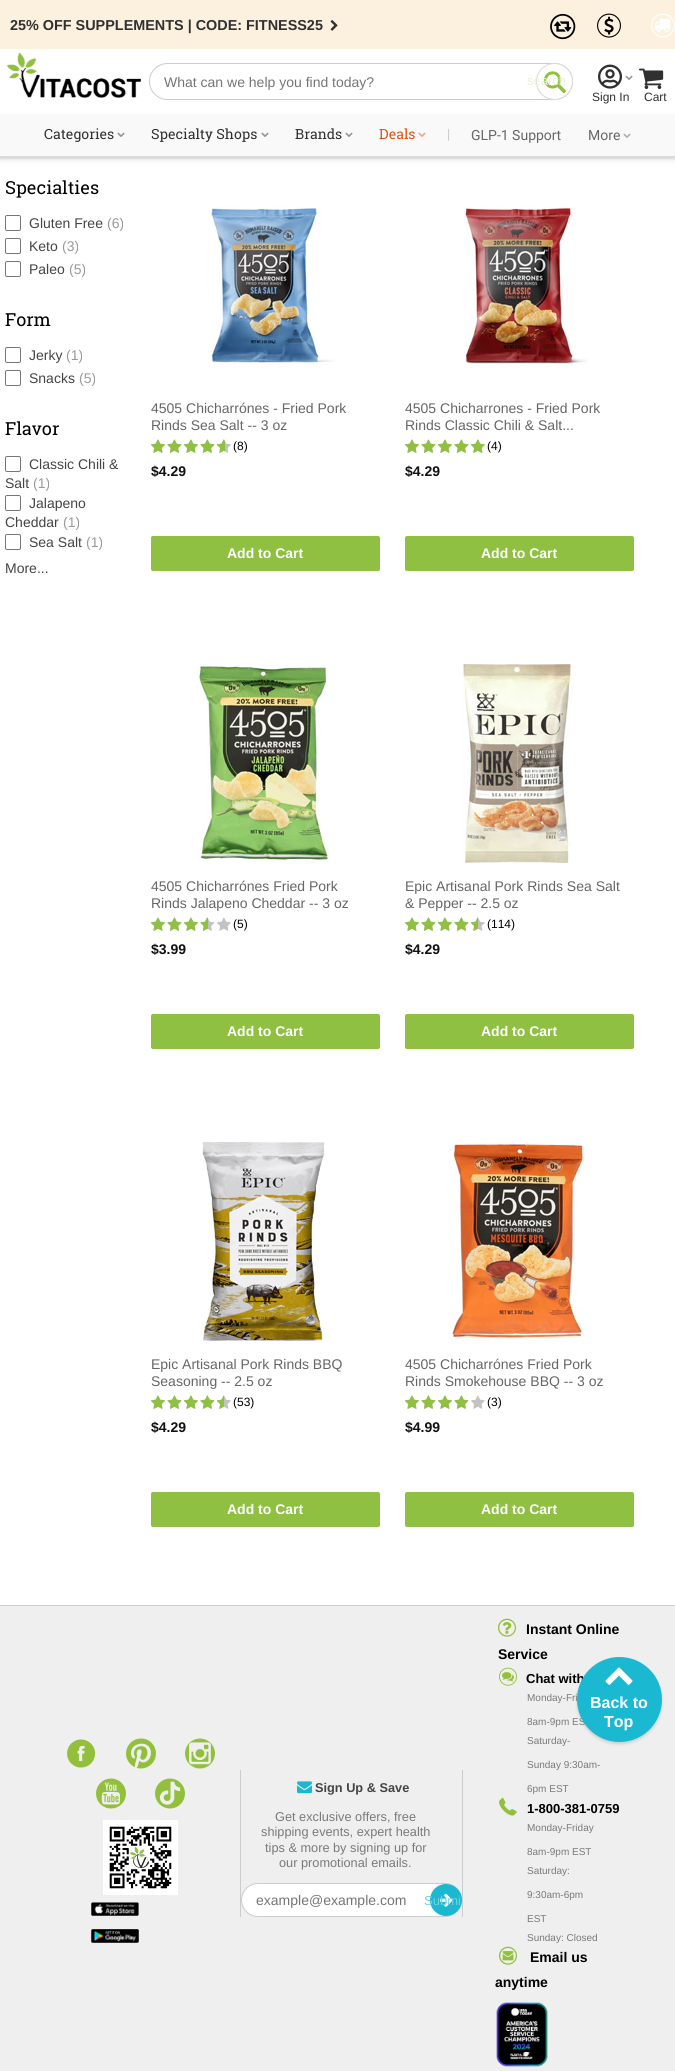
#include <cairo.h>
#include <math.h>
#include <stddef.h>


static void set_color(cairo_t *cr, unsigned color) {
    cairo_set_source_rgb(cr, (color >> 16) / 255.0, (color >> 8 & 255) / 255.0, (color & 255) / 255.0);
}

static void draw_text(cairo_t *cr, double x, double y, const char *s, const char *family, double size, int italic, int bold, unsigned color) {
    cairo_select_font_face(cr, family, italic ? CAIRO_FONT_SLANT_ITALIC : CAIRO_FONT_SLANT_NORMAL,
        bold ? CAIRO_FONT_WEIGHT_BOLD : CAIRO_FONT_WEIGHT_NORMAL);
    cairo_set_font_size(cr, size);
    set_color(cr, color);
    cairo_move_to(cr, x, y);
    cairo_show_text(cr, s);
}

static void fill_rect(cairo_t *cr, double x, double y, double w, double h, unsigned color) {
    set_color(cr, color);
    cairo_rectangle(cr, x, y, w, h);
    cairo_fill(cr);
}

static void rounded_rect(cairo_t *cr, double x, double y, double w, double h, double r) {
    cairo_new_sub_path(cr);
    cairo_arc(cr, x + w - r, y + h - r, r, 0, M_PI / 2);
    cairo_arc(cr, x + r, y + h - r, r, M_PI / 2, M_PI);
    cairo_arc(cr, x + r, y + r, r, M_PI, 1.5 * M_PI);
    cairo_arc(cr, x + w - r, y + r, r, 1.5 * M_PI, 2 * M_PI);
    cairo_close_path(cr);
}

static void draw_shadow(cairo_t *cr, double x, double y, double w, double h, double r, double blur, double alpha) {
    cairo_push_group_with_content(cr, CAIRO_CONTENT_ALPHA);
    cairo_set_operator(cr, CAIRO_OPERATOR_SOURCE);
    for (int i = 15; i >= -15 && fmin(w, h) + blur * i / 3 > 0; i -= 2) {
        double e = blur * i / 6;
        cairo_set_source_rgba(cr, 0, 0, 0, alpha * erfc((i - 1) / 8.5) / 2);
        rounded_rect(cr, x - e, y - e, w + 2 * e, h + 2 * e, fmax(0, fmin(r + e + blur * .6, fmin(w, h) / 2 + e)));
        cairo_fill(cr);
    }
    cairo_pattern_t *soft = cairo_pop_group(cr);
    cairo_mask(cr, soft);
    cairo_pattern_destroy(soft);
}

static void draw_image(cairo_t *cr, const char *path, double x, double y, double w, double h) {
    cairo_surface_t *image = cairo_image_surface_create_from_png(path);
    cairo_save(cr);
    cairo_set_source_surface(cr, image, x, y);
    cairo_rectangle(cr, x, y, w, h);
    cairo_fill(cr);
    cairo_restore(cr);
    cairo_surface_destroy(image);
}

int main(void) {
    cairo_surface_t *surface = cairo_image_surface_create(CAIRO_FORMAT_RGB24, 675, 2071);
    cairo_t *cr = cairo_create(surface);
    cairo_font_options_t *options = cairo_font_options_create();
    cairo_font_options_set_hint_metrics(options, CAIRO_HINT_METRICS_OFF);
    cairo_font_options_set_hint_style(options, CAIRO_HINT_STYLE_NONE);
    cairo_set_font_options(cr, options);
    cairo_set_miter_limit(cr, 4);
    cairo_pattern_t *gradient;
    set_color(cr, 0xFFFFFF);
    cairo_paint(cr);
    set_color(cr, 0xC8C8C8);
    draw_shadow(cr, 0, 0, 675, 157, 0, 4, 1);
    fill_rect(cr, 0, 49, 675, 65, 0xFFFFFF);
    fill_rect(cr, 0, 156, 675, 1, 0xF1F1F1);
    fill_rect(cr, 0, 0, 675, 49, 0xFCF1DF);
    draw_text(cr, 10, 30, "25% OFF SUPPLEMENTS | CODE: FITNESS25", "Liberation Sans", 14.4, 0, 1, 0x303030);
    draw_image(cr, "assets/img1.png", 330, 20, 8, 11);
    draw_image(cr, "assets/img2.png", 550, 13, 26, 27);
    draw_image(cr, "assets/img3.png", 597, 13, 24, 25);
    draw_image(cr, "assets/img4.png", 651, 13, 24, 25);
    draw_image(cr, "assets/img5.png", 6, 52, 135, 46);
    rounded_rect(cr, 149.5, 63.5, 423, 36, 18);
    set_color(cr, 0xCCCCCC);
    cairo_set_line_width(cr, 1);
    cairo_stroke(cr);
    set_color(cr, 0xFFFFFF);
    cairo_arc(cr, 554.5, 81.5, 18, 0, 2 * M_PI);
    cairo_fill_preserve(cr);
    set_color(cr, 0xD8D8D8);
    cairo_stroke(cr);
    draw_image(cr, "assets/img6.png", 544, 71, 23, 23);
    draw_text(cr, 164, 87, "What can we help you find today?", "Liberation Sans", 14, 0, 0, 0x757575);
    draw_text(cr, 527, 85, "search", "Liberation Sans", 13, 0, 0, 0xEAF2DA);
    draw_image(cr, "assets/img7.png", 598, 64, 24, 25);
    draw_image(cr, "assets/img8.png", 625, 75, 8, 5);
    draw_text(cr, 592, 101, "Sign In", "Liberation Sans", 12, 0, 0, 0x303030);
    draw_image(cr, "assets/img9.png", 639, 68, 25, 21);
    draw_text(cr, 644, 101, "Cart", "Liberation Sans", 12, 0, 0, 0x303030);
    fill_rect(cr, 0, 114, 675, 42, 0xF9F9F9);
    draw_text(cr, 44, 139, "Categories", "Roboto Slab", 14, 0, 0, 0x303030);
    draw_image(cr, "assets/img10.png", 117, 132, 8, 5);
    draw_text(cr, 151, 139, "Specialty Shops", "Roboto Slab", 14, 0, 0, 0x303030);
    draw_image(cr, "assets/img10.png", 261, 132, 8, 5);
    draw_text(cr, 295, 139, "Brands", "Roboto Slab", 14, 0, 0, 0x303030);
    draw_image(cr, "assets/img10.png", 345, 132, 8, 5);
    draw_text(cr, 379, 139, "Deals", "Roboto Slab", 14, 0, 0, 0xDC5215);
    draw_image(cr, "assets/img11.png", 418, 132, 8, 5);
    draw_text(cr, 447, 139, "|", "Roboto Slab", 14, 0, 0, 0xCCCCCC);
    draw_text(cr, 471, 140, "GLP-1 Support", "Roboto", 14, 0, 0, 0x666666);
    draw_text(cr, 588, 140, "More", "Roboto", 14, 0, 0, 0x666666);
    draw_image(cr, "assets/img12.png", 623, 133, 8, 5);
    gradient = cairo_pattern_create_linear(338, 156, 338, 161);
    cairo_pattern_add_color_stop_rgba(gradient, 0, 0, 0, 0, 0.1);
    cairo_pattern_add_color_stop_rgba(gradient, 0.35, 0, 0, 0, 0.05);
    cairo_pattern_add_color_stop_rgba(gradient, 1, 0, 0, 0, 0);
    cairo_set_source(cr, gradient);
    cairo_pattern_destroy(gradient);
    cairo_rectangle(cr, 0, 156, 675, 4);
    cairo_fill(cr);
    draw_text(cr, 5, 194, "Specialties", "Roboto Slab", 18, 0, 0, 0x000000);
    rounded_rect(cr, 5.5, 215.5, 15, 15, 1.5);
    set_color(cr, 0x767676);
    cairo_stroke(cr);
    draw_text(cr, 29, 228, "Gluten Free", "Liberation Sans", 14, 0, 0, 0x444444);
    draw_text(cr, 107, 228, "(6)", "Liberation Sans", 14, 0, 0, 0x999999);
    rounded_rect(cr, 5.5, 238.5, 15, 15, 1.5);
    set_color(cr, 0x767676);
    cairo_stroke(cr);
    draw_text(cr, 29, 251, "Keto", "Liberation Sans", 14, 0, 0, 0x444444);
    draw_text(cr, 62, 251, "(3)", "Liberation Sans", 14, 0, 0, 0x999999);
    rounded_rect(cr, 5.5, 261.5, 15, 15, 1.5);
    set_color(cr, 0x767676);
    cairo_stroke(cr);
    draw_text(cr, 29, 274, "Paleo", "Liberation Sans", 14, 0, 0, 0x444444);
    draw_text(cr, 69, 274, "(5)", "Liberation Sans", 14, 0, 0, 0x999999);
    draw_text(cr, 5, 326, "Form", "Roboto Slab", 18, 0, 0, 0x000000);
    rounded_rect(cr, 5.5, 347.5, 15, 15, 1.5);
    set_color(cr, 0x767676);
    cairo_stroke(cr);
    draw_text(cr, 29, 360, "Jerky", "Liberation Sans", 14, 0, 0, 0x444444);
    draw_text(cr, 66, 360, "(1)", "Liberation Sans", 14, 0, 0, 0x999999);
    rounded_rect(cr, 5.5, 370.5, 15, 15, 1.5);
    set_color(cr, 0x767676);
    cairo_stroke(cr);
    draw_text(cr, 29, 383, "Snacks", "Liberation Sans", 14, 0, 0, 0x444444);
    draw_text(cr, 79, 383, "(5)", "Liberation Sans", 14, 0, 0, 0x999999);
    draw_text(cr, 5, 435, "Flavor", "Roboto Slab", 18, 0, 0, 0x000000);
    rounded_rect(cr, 5.5, 456.5, 15, 15, 1.5);
    set_color(cr, 0x767676);
    cairo_stroke(cr);
    draw_text(cr, 29, 469, "Classic Chili &", "Liberation Sans", 14, 0, 0, 0x444444);
    draw_text(cr, 5, 488, "Salt", "Liberation Sans", 14, 0, 0, 0x444444);
    draw_text(cr, 33, 488, "(1)", "Liberation Sans", 14, 0, 0, 0x999999);
    rounded_rect(cr, 5.5, 495.5, 15, 15, 1.5);
    set_color(cr, 0x767676);
    cairo_stroke(cr);
    draw_text(cr, 29, 508, "Jalapeno", "Liberation Sans", 14, 0, 0, 0x444444);
    draw_text(cr, 5, 527, "Cheddar", "Liberation Sans", 14, 0, 0, 0x444444);
    draw_text(cr, 63, 527, "(1)", "Liberation Sans", 14, 0, 0, 0x999999);
    rounded_rect(cr, 5.5, 534.5, 15, 15, 1.5);
    set_color(cr, 0x767676);
    cairo_stroke(cr);
    draw_text(cr, 29, 547, "Sea Salt", "Liberation Sans", 14, 0, 0, 0x444444);
    draw_text(cr, 86, 547, "(1)", "Liberation Sans", 14, 0, 0, 0x999999);
    draw_text(cr, 5, 573, "More...", "Liberation Sans", 14, 0, 0, 0x444444);
    draw_image(cr, "assets/img13.png", 210, 206, 125, 159);
    draw_text(cr, 151, 413, "4505 Chicharrónes - Fried Pork", "Liberation Sans", 14, 0, 0, 0x666666);
    draw_text(cr, 151, 430, "Rinds Sea Salt -- 3 oz", "Liberation Sans", 14, 0, 0, 0x666666);
    draw_image(cr, "assets/img14.png", 151, 439, 80, 14);
    draw_image(cr, "assets/img15.png", 151, 439, 74, 14);
    draw_text(cr, 233, 450, "(8)", "Liberation Sans", 12, 0, 0, 0x000000);
    draw_text(cr, 151, 476, "$4.29", "Liberation Sans", 14, 0, 1, 0x111111);
    set_color(cr, 0x8FC042);
    rounded_rect(cr, 151, 536, 229, 35, 2);
    cairo_fill(cr);
    draw_text(cr, 227, 558, "Add to Cart", "Liberation Sans", 14, 0, 1, 0xFFFFFF);
    draw_image(cr, "assets/img16.png", 465, 205, 123, 161);
    draw_text(cr, 405, 413, "4505 Chicharrones - Fried Pork", "Liberation Sans", 14, 0, 0, 0x666666);
    draw_text(cr, 405, 430, "Rinds Classic Chili & Salt...", "Liberation Sans", 14, 0, 0, 0x666666);
    draw_image(cr, "assets/img14.png", 405, 439, 80, 14);
    draw_image(cr, "assets/img17.png", 405, 439, 80, 14);
    draw_text(cr, 487, 450, "(4)", "Liberation Sans", 12, 0, 0, 0x000000);
    draw_text(cr, 405, 476, "$4.29", "Liberation Sans", 14, 0, 1, 0x111111);
    set_color(cr, 0x8FC042);
    rounded_rect(cr, 405, 536, 229, 35, 2);
    cairo_fill(cr);
    draw_text(cr, 481, 558, "Add to Cart", "Liberation Sans", 14, 0, 1, 0xFFFFFF);
    draw_image(cr, "assets/img18.png", 196, 664, 134, 199);
    draw_text(cr, 151, 891, "4505 Chicharrónes Fried Pork", "Liberation Sans", 14, 0, 0, 0x666666);
    draw_text(cr, 151, 908, "Rinds Jalapeno Cheddar -- 3 oz", "Liberation Sans", 14, 0, 0, 0x666666);
    draw_image(cr, "assets/img14.png", 151, 917, 80, 14);
    draw_image(cr, "assets/img19.png", 151, 917, 57, 14);
    draw_text(cr, 233, 928, "(5)", "Liberation Sans", 12, 0, 0, 0x000000);
    draw_text(cr, 151, 954, "$3.99", "Liberation Sans", 14, 0, 1, 0x111111);
    set_color(cr, 0x8FC042);
    rounded_rect(cr, 151, 1014, 229, 35, 2);
    cairo_fill(cr);
    draw_text(cr, 227, 1036, "Add to Cart", "Liberation Sans", 14, 0, 1, 0xFFFFFF);
    draw_image(cr, "assets/img20.png", 459, 664, 113, 199);
    draw_text(cr, 405, 891, "Epic Artisanal Pork Rinds Sea Salt", "Liberation Sans", 14, 0, 0, 0x666666);
    draw_text(cr, 405, 908, "& Pepper -- 2.5 oz", "Liberation Sans", 14, 0, 0, 0x666666);
    draw_image(cr, "assets/img14.png", 405, 917, 80, 14);
    draw_image(cr, "assets/img21.png", 405, 917, 73, 14);
    draw_text(cr, 487, 928, "(114)", "Liberation Sans", 12, 0, 0, 0x000000);
    draw_text(cr, 405, 954, "$4.29", "Liberation Sans", 14, 0, 1, 0x111111);
    set_color(cr, 0x8FC042);
    rounded_rect(cr, 405, 1014, 229, 35, 2);
    cairo_fill(cr);
    draw_text(cr, 481, 1036, "Add to Cart", "Liberation Sans", 14, 0, 1, 0xFFFFFF);
    draw_image(cr, "assets/img22.png", 202, 1142, 125, 199);
    draw_text(cr, 151, 1369, "Epic Artisanal Pork Rinds BBQ", "Liberation Sans", 14, 0, 0, 0x666666);
    draw_text(cr, 151, 1386, "Seasoning -- 2.5 oz", "Liberation Sans", 14, 0, 0, 0x666666);
    draw_image(cr, "assets/img14.png", 151, 1395, 80, 14);
    draw_image(cr, "assets/img21.png", 151, 1395, 73, 14);
    draw_text(cr, 233, 1406, "(53)", "Liberation Sans", 12, 0, 0, 0x000000);
    draw_text(cr, 151, 1432, "$4.29", "Liberation Sans", 14, 0, 1, 0x111111);
    set_color(cr, 0x8FC042);
    rounded_rect(cr, 151, 1492, 229, 35, 2);
    cairo_fill(cr);
    draw_text(cr, 227, 1514, "Add to Cart", "Liberation Sans", 14, 0, 1, 0xFFFFFF);
    draw_image(cr, "assets/img23.png", 449, 1142, 136, 199);
    draw_text(cr, 405, 1369, "4505 Chicharrónes Fried Pork", "Liberation Sans", 14, 0, 0, 0x666666);
    draw_text(cr, 405, 1386, "Rinds Smokehouse BBQ -- 3 oz", "Liberation Sans", 14, 0, 0, 0x666666);
    draw_image(cr, "assets/img14.png", 405, 1395, 80, 14);
    draw_image(cr, "assets/img24.png", 405, 1395, 66, 14);
    draw_text(cr, 487, 1406, "(3)", "Liberation Sans", 12, 0, 0, 0x000000);
    draw_text(cr, 405, 1432, "$4.99", "Liberation Sans", 14, 0, 1, 0x111111);
    set_color(cr, 0x8FC042);
    rounded_rect(cr, 405, 1492, 229, 35, 2);
    cairo_fill(cr);
    draw_text(cr, 481, 1514, "Add to Cart", "Liberation Sans", 14, 0, 1, 0xFFFFFF);
    fill_rect(cr, 0, 1606, 675, 465, 0xEEEFEE);
    set_color(cr, 0xCCCCCC);
    draw_shadow(cr, 577, 1659, 85, 85, 42.5, 1.5, 1);
    draw_text(cr, 526, 1683, "Chat with", "Liberation Sans", 13, 0, 1, 0x000000);
    draw_text(cr, 527, 1725, "8am-9pm ES", "Liberation Sans", 10, 0, 0, 0x797A7D);
    set_color(cr, 0x1BB8D1);
    cairo_new_path(cr);
    cairo_arc(cr, 619.5, 1699.5, 42.5, 0, 2 * M_PI);
    cairo_fill(cr);
    draw_image(cr, "assets/img25.png", 605, 1667, 28, 18);
    draw_text(cr, 590, 1708, "Back to", "Liberation Sans", 16, 0, 1, 0xFFFFFF);
    draw_text(cr, 604, 1727, "Top", "Liberation Sans", 16, 0, 1, 0xFFFFFF);
    fill_rect(cr, 0, 1605, 675, 1, 0xCCCCCC);
    draw_image(cr, "assets/img26.png", 67, 1739, 29, 29);
    draw_image(cr, "assets/img27.png", 126, 1738, 30, 31);
    draw_image(cr, "assets/img28.png", 185, 1738, 30, 31);
    draw_image(cr, "assets/img29.png", 96, 1778, 30, 31);
    draw_image(cr, "assets/img30.png", 155, 1778, 30, 31);
    draw_image(cr, "assets/img31.png", 103, 1820, 75, 75);
    draw_image(cr, "assets/img32.png", 91, 1902, 48, 14);
    draw_image(cr, "assets/img33.png", 91, 1929, 48, 14);
    fill_rect(cr, 462, 1770, 1, 147, 0xCCCCCC);
    fill_rect(cr, 240, 1770, 1, 147, 0xCCCCCC);
    draw_image(cr, "assets/img34.png", 297, 1781, 15, 13);
    draw_text(cr, 315, 1792, "Sign Up & Save", "Liberation Sans", 12.75, 0, 1, 0x444444);
    draw_text(cr, 275, 1821, "Get exclusive offers, free", "Liberation Sans", 12.75, 0, 0, 0x797A7D);
    draw_text(cr, 261, 1836, "shipping events, expert health", "Liberation Sans", 12.75, 0, 0, 0x797A7D);
    draw_text(cr, 265, 1852, "tips & more by signing up for", "Liberation Sans", 12.75, 0, 0, 0x797A7D);
    draw_text(cr, 279, 1867, "our promotional emails.", "Liberation Sans", 12.75, 0, 0, 0x797A7D);
    set_color(cr, 0xFFFFFF);
    rounded_rect(cr, 241.5, 1883.5, 220, 33, 16.5);
    cairo_fill_preserve(cr);
    set_color(cr, 0xCCCCCC);
    cairo_stroke(cr);
    draw_text(cr, 256, 1905, "example@example.com", "Liberation Sans", 14, 0, 0, 0x757575);
    set_color(cr, 0x1CB8D1);
    cairo_new_path(cr);
    cairo_arc(cr, 446, 1900, 16, 0, 2 * M_PI);
    cairo_fill(cr);
    draw_image(cr, "assets/img35.png", 440, 1893, 13, 14);
    draw_text(cr, 424, 1905, "Submi", "Liberation Sans", 13, 0, 0, 0x6FD2E2);
    draw_image(cr, "assets/img36.png", 498, 1618, 18, 19);
    draw_text(cr, 526, 1634, "Instant Online", "Liberation Sans", 14, 0, 1, 0x000000);
    draw_text(cr, 498, 1659, "Service", "Liberation Sans", 14, 0, 1, 0x000000);
    draw_image(cr, "assets/img37.png", 499, 1667, 18, 19);
    draw_text(cr, 527, 1701, "Monday-Fri", "Liberation Sans", 10, 0, 0, 0x797A7D);
    draw_text(cr, 527, 1744, "Saturday-", "Liberation Sans", 10, 0, 0, 0x797A7D);
    draw_text(cr, 527, 1768, "Sunday 9:30am-", "Liberation Sans", 10, 0, 0, 0x797A7D);
    draw_text(cr, 527, 1792, "6pm EST", "Liberation Sans", 10, 0, 0, 0x797A7D);
    draw_image(cr, "assets/img38.png", 499, 1797, 18, 19);
    draw_text(cr, 527, 1813, "1-800-381-0759", "Liberation Sans", 13, 0, 1, 0x000000);
    draw_text(cr, 527, 1831, "Monday-Friday", "Liberation Sans", 10, 0, 0, 0x797A7D);
    draw_text(cr, 527, 1855, "8am-9pm EST", "Liberation Sans", 10, 0, 0, 0x797A7D);
    draw_text(cr, 527, 1874, "Saturday:", "Liberation Sans", 10, 0, 0, 0x797A7D);
    draw_text(cr, 527, 1898, "9:30am-6pm", "Liberation Sans", 10, 0, 0, 0x797A7D);
    draw_text(cr, 527, 1922, "EST", "Liberation Sans", 10, 0, 0, 0x797A7D);
    draw_text(cr, 527, 1941, "Sunday: Closed", "Liberation Sans", 10, 0, 0, 0x797A7D);
    draw_image(cr, "assets/img39.png", 499, 1946, 18, 19);
    draw_text(cr, 530, 1962, "Email us", "Liberation Sans", 14, 0, 1, 0x000000);
    draw_text(cr, 495, 1987, "anytime", "Liberation Sans", 14, 0, 1, 0x000000);
    draw_image(cr, "assets/img40.png", 496, 2002, 52, 65);
    cairo_surface_write_to_png(surface, "output.png");
    cairo_font_options_destroy(options);
    cairo_destroy(cr);
    cairo_surface_destroy(surface);
    return 0;
}
